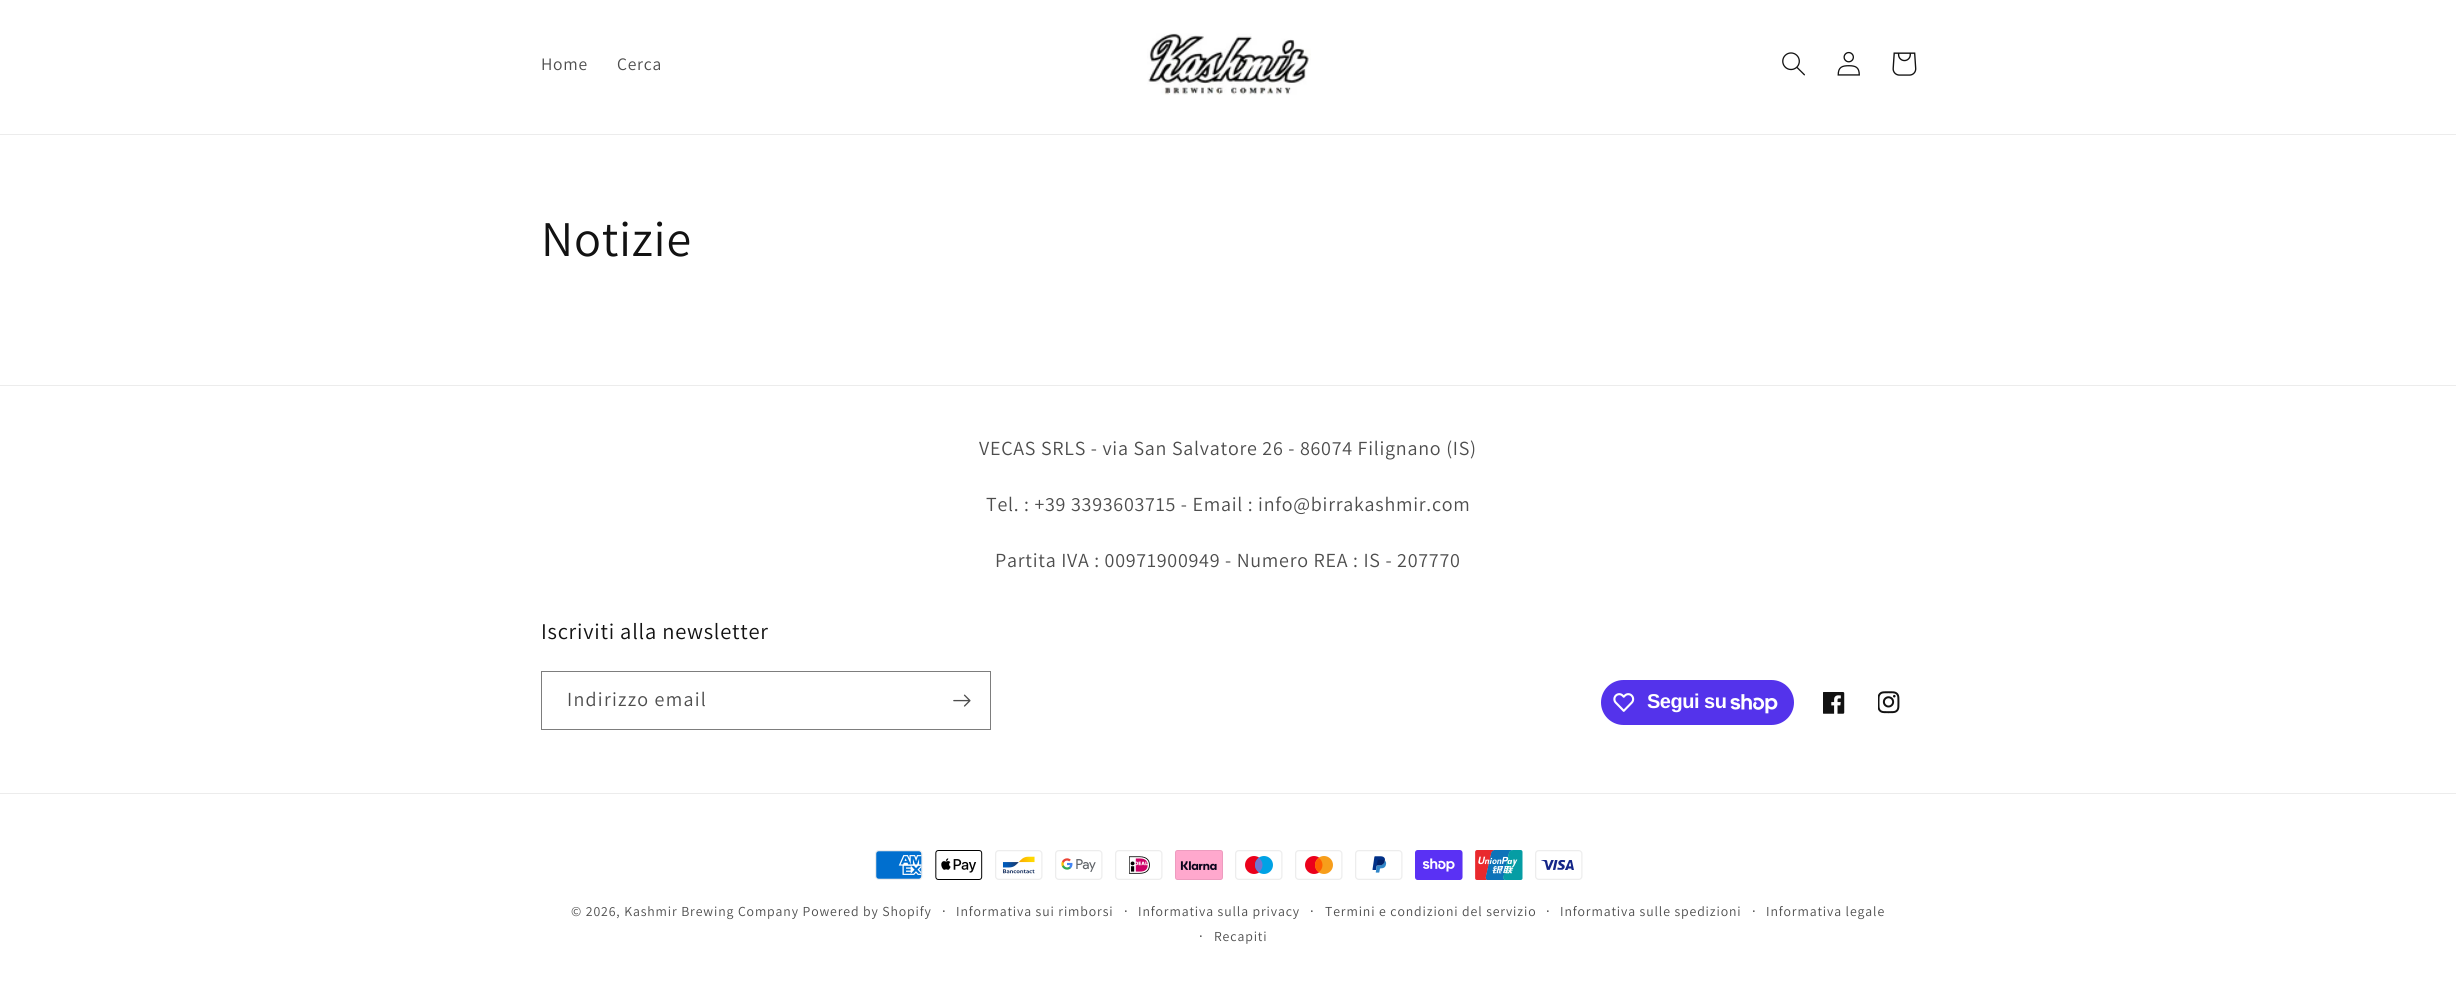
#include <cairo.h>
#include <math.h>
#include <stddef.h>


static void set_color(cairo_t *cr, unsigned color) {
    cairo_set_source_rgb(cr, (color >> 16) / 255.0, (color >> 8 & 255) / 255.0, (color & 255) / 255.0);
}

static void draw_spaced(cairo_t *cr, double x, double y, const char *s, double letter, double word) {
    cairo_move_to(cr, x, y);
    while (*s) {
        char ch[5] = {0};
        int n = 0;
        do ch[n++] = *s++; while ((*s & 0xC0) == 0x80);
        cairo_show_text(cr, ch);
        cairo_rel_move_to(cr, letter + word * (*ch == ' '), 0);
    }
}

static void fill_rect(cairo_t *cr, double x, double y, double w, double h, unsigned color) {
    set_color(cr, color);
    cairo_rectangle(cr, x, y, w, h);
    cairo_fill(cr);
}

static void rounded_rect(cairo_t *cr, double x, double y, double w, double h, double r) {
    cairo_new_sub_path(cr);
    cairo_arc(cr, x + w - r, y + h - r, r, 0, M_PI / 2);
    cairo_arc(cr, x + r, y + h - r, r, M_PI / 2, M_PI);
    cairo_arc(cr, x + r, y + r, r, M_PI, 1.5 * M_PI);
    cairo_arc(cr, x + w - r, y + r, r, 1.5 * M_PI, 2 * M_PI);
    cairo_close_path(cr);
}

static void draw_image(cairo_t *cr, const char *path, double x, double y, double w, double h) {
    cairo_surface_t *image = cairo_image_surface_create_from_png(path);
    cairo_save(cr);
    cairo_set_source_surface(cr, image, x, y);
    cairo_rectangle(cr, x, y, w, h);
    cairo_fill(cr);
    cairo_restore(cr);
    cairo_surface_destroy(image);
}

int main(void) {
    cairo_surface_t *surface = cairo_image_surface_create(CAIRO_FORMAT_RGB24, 2456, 994);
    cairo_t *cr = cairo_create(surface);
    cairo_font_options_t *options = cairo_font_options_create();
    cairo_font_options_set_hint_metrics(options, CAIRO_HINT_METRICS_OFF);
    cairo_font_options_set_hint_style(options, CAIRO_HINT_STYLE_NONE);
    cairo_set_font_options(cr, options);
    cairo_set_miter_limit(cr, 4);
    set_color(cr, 0xFFFFFF);
    cairo_paint(cr);
    fill_rect(cr, 0, 134, 2456, 1, 0xECECEC);
    cairo_select_font_face(cr, "Assistant", CAIRO_FONT_SLANT_NORMAL, CAIRO_FONT_WEIGHT_NORMAL);
    cairo_set_font_size(cr, 17.5);
    set_color(cr, 0x4D4D4D);
    draw_spaced(cr, 541, 70, "Home", 0.75, 0);
    draw_spaced(cr, 617, 70, "Cerca", 0.75, 0);
    draw_image(cr, "assets/img1.png", 1147, 33, 164, 62);
    draw_image(cr, "assets/img2.png", 1782, 52, 23, 24);
    draw_image(cr, "assets/img3.png", 1837, 51, 23, 25);
    draw_image(cr, "assets/img4.png", 1892, 52, 25, 24);
    cairo_set_font_size(cr, 50);
    set_color(cr, 0x121212);
    draw_spaced(cr, 541, 256, "Notizie", 0.75, 0);
    fill_rect(cr, 0, 385, 2456, 1, 0xECECEC);
    cairo_set_font_size(cr, 20);
    set_color(cr, 0x4D4D4D);
    draw_spaced(cr, 979, 455, "VECAS SRLS - via San Salvatore 26 - 86074 Filignano (IS)", 0.75, 0);
    draw_spaced(cr, 986, 511, "Tel. : +39 3393603715 - Email : info@birrakashmir.com", 0.75, 0);
    draw_spaced(cr, 995, 567, "Partita IVA : 00971900949 - Numero REA : IS - 207770", 0.75, 0);
    cairo_set_font_size(cr, 22.5);
    set_color(cr, 0x121212);
    draw_spaced(cr, 541, 639, "Iscriviti alla newsletter", 0.75, 0);
    cairo_rectangle(cr, 541.5, 671.5, 449, 58);
    set_color(cr, 0x7D7D7D);
    cairo_set_line_width(cr, 1);
    cairo_stroke(cr);
    cairo_set_font_size(cr, 20);
    set_color(cr, 0x4D4D4D);
    draw_spaced(cr, 567, 706, "Indirizzo email", 1.25, 0);
    draw_image(cr, "assets/img5.png", 953, 694, 18, 13);
    set_color(cr, 0x5433EB);
    rounded_rect(cr, 1601, 680, 193, 45, 22.5);
    cairo_fill(cr);
    draw_image(cr, "assets/img6.png", 1613, 693, 22, 19);
    cairo_select_font_face(cr, "Liberation Sans", CAIRO_FONT_SLANT_NORMAL, CAIRO_FONT_WEIGHT_BOLD);
    set_color(cr, 0xFFFFFF);
    draw_spaced(cr, 1647, 708, "Segui su", -0.5, 0);
    draw_image(cr, "assets/img7.png", 1730, 694, 48, 20);
    draw_image(cr, "assets/img8.png", 1823, 692, 22, 22);
    draw_image(cr, "assets/img9.png", 1878, 691, 22, 23);
    fill_rect(cr, 0, 793, 2456, 1, 0xECECEC);
    draw_image(cr, "assets/img10.png", 875, 850, 48, 30);
    draw_image(cr, "assets/img11.png", 935, 850, 48, 30);
    draw_image(cr, "assets/img12.png", 995, 850, 48, 30);
    draw_image(cr, "assets/img13.png", 1055, 850, 48, 30);
    draw_image(cr, "assets/img14.png", 1115, 850, 48, 30);
    draw_image(cr, "assets/img15.png", 1175, 850, 48, 30);
    draw_image(cr, "assets/img16.png", 1235, 850, 48, 30);
    draw_image(cr, "assets/img17.png", 1295, 850, 48, 30);
    draw_image(cr, "assets/img18.png", 1355, 850, 48, 30);
    draw_image(cr, "assets/img19.png", 1415, 850, 48, 30);
    draw_image(cr, "assets/img20.png", 1475, 850, 48, 30);
    draw_image(cr, "assets/img21.png", 1535, 850, 48, 30);
    cairo_select_font_face(cr, "Assistant", CAIRO_FONT_SLANT_NORMAL, CAIRO_FONT_WEIGHT_NORMAL);
    cairo_set_font_size(cr, 13.75);
    set_color(cr, 0x4D4D4D);
    draw_spaced(cr, 571, 916, "© 2026, Kashmir Brewing Company Powered by Shopify", 0.88, 0);
    cairo_set_font_size(cr, 15);
    draw_spaced(cr, 942, 916, "·", 0.88, 0);
    cairo_set_font_size(cr, 13.75);
    draw_spaced(cr, 956, 916, "Informativa sui rimborsi", 0.88, 0);
    cairo_set_font_size(cr, 15);
    draw_spaced(cr, 1124, 916, "·", 0.88, 0);
    cairo_set_font_size(cr, 13.75);
    draw_spaced(cr, 1138, 916, "Informativa sulla privacy", 0.88, 0);
    cairo_set_font_size(cr, 15);
    draw_spaced(cr, 1310, 916, "·", 0.88, 0);
    cairo_set_font_size(cr, 13.75);
    draw_spaced(cr, 1325, 916, "Termini e condizioni del servizio", 0.88, 0);
    cairo_set_font_size(cr, 15);
    draw_spaced(cr, 1546, 916, "·", 0.88, 0);
    cairo_set_font_size(cr, 13.75);
    draw_spaced(cr, 1560, 916, "Informativa sulle spedizioni", 0.88, 0);
    cairo_set_font_size(cr, 15);
    draw_spaced(cr, 1752, 916, "·", 0.88, 0);
    cairo_set_font_size(cr, 13.75);
    draw_spaced(cr, 1766, 916, "Informativa legale", 0.88, 0);
    cairo_set_font_size(cr, 15);
    draw_spaced(cr, 1199, 941, "·", 0.88, 0);
    cairo_set_font_size(cr, 13.75);
    draw_spaced(cr, 1214, 941, "Recapiti", 0.88, 0);
    cairo_surface_write_to_png(surface, "output.png");
    cairo_font_options_destroy(options);
    cairo_destroy(cr);
    cairo_surface_destroy(surface);
    return 0;
}
